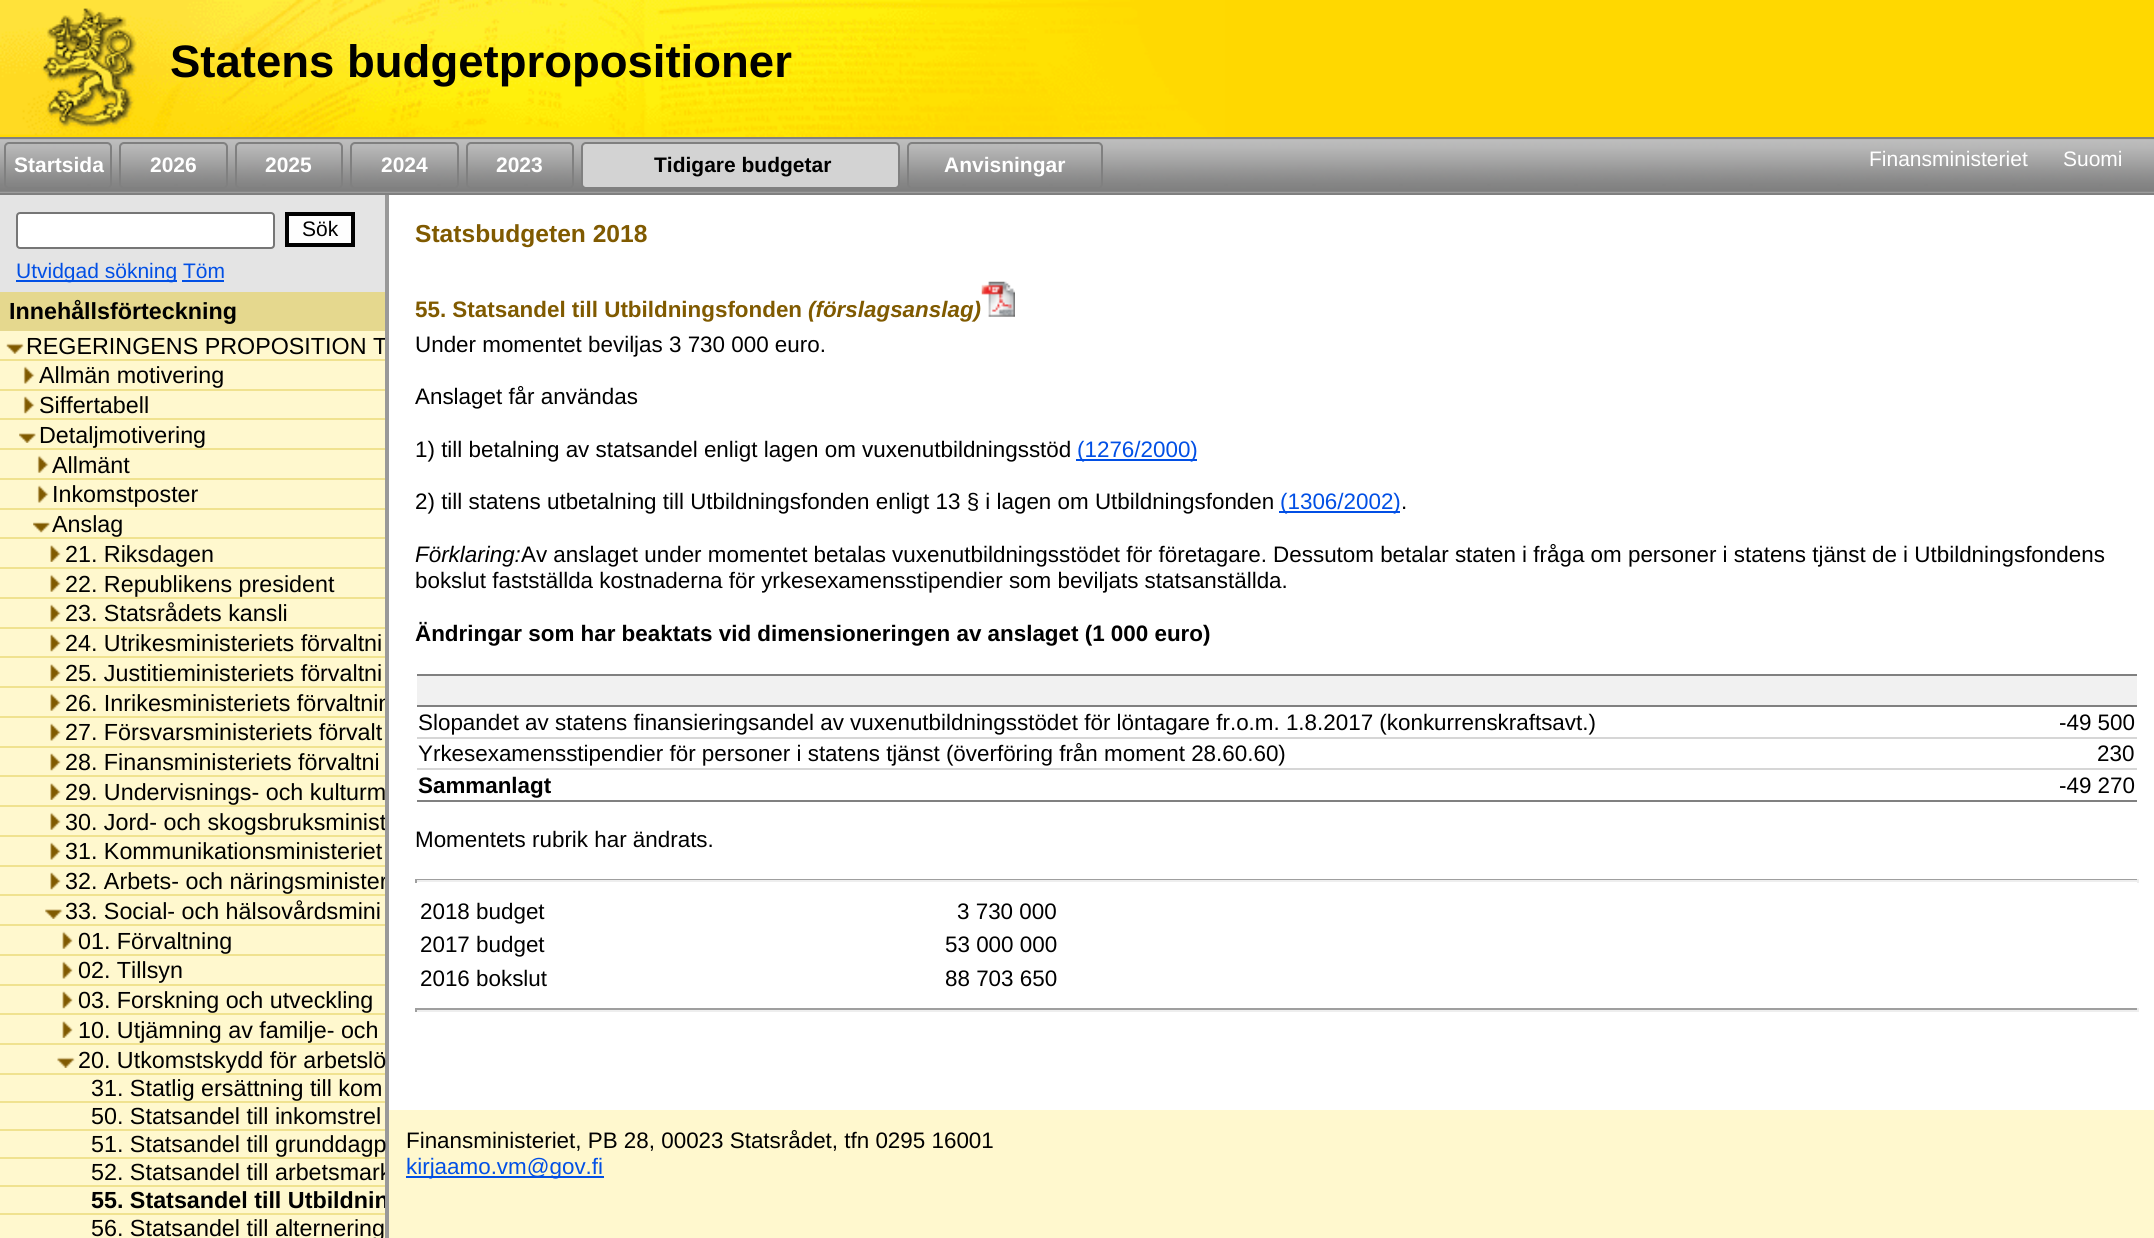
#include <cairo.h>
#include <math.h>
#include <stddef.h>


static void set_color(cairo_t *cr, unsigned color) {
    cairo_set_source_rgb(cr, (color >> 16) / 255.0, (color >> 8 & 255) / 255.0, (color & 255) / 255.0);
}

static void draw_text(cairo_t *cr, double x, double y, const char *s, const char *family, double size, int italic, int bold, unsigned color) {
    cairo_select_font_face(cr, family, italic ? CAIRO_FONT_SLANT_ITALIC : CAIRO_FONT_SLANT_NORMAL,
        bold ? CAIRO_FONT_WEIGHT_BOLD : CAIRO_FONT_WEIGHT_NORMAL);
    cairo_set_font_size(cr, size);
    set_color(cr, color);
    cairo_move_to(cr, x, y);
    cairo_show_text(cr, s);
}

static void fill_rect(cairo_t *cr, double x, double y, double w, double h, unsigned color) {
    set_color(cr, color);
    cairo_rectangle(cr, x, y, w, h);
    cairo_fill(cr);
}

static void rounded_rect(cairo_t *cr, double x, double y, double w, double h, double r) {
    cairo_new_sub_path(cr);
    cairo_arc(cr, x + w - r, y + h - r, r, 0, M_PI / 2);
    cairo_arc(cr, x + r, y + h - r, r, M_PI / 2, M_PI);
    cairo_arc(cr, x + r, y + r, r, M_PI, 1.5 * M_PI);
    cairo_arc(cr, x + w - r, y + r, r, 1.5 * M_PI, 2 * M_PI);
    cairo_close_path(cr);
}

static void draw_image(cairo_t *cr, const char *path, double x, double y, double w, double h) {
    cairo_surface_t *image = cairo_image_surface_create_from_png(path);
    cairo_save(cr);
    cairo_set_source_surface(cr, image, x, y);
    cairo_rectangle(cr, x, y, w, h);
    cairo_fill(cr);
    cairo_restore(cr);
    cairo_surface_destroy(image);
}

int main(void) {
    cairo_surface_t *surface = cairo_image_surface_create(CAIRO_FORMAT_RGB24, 2154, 1238);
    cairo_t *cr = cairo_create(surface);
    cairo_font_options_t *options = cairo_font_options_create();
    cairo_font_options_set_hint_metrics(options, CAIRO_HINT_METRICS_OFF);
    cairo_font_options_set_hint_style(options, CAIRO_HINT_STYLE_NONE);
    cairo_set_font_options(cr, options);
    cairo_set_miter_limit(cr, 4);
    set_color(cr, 0xFFF8CE);
    cairo_paint(cr);
    draw_image(cr, "assets/img1.png", 0, 0, 1225, 137);
    draw_text(cr, 170, 77, "Statens budgetpropositioner", "Liberation Sans", 45.5, 0, 1, 0x000000);
    fill_rect(cr, 1225, 0, 929, 137, 0xFFD800);
    draw_image(cr, "assets/img2.png", 0, 139, 2154, 54);
    fill_rect(cr, 0, 137, 2154, 2, 0x808080);
    fill_rect(cr, 385, 193, 4, 1045, 0x999999);
    fill_rect(cr, 0, 193, 2154, 2, 0x808080);
    rounded_rect(cr, 5, 143, 106, 45, 4);
    cairo_stroke(cr);
    draw_text(cr, 14, 172, "Startsida", "Liberation Sans", 21, 0, 1, 0xFFFFFF);
    rounded_rect(cr, 120, 143, 107, 45, 4);
    set_color(cr, 0x808080);
    cairo_stroke(cr);
    draw_text(cr, 150, 172, "2026", "Liberation Sans", 21, 0, 1, 0xFFFFFF);
    rounded_rect(cr, 236, 143, 106, 45, 4);
    set_color(cr, 0x808080);
    cairo_stroke(cr);
    draw_text(cr, 265, 172, "2025", "Liberation Sans", 21, 0, 1, 0xFFFFFF);
    rounded_rect(cr, 351, 143, 107, 45, 4);
    set_color(cr, 0x808080);
    cairo_stroke(cr);
    draw_text(cr, 381, 172, "2024", "Liberation Sans", 21, 0, 1, 0xFFFFFF);
    rounded_rect(cr, 467, 143, 106, 45, 4);
    set_color(cr, 0x808080);
    cairo_stroke(cr);
    draw_text(cr, 496, 172, "2023", "Liberation Sans", 21, 0, 1, 0xFFFFFF);
    set_color(cr, 0xD3D3D3);
    rounded_rect(cr, 582, 143, 317, 45, 4);
    cairo_fill_preserve(cr);
    set_color(cr, 0x808080);
    cairo_stroke(cr);
    draw_text(cr, 654, 172, "Tidigare budgetar", "Liberation Sans", 21, 0, 1, 0x000000);
    rounded_rect(cr, 908, 143, 194, 45, 4);
    set_color(cr, 0x808080);
    cairo_stroke(cr);
    draw_text(cr, 944, 172, "Anvisningar", "Liberation Sans", 21, 0, 1, 0xFFFFFF);
    draw_text(cr, 1869, 166, "Finansministeriet", "Liberation Sans", 21, 0, 0, 0xFFFFFF);
    draw_text(cr, 2063, 166, "Suomi", "Liberation Sans", 21, 0, 0, 0xFFFFFF);
    fill_rect(cr, 0, 195, 385, 97, 0xE4E4E4);
    set_color(cr, 0xFFFFFF);
    rounded_rect(cr, 17, 213, 257, 35, 3);
    cairo_fill_preserve(cr);
    set_color(cr, 0x767676);
    cairo_stroke(cr);
    set_color(cr, 0xFEFEFE);
    cairo_rectangle(cr, 287, 214, 66, 31);
    cairo_fill_preserve(cr);
    set_color(cr, 0x000000);
    cairo_set_line_width(cr, 4);
    cairo_stroke(cr);
    draw_text(cr, 302, 236, "Sök", "Liberation Sans", 21, 0, 0, 0x000000);
    fill_rect(cr, 16, 280, 161, 2, 0x014FE5);
    draw_text(cr, 16, 278, "Utvidgad sökning Töm", "Liberation Sans", 21, 0, 0, 0x014FE5);
    fill_rect(cr, 182, 280, 42, 2, 0x014FE5);
    fill_rect(cr, 0, 292, 385, 39, 0xE5D88E);
    draw_text(cr, 9, 319, "Innehållsförteckning", "Liberation Sans", 23.3, 0, 1, 0x000000);
    fill_rect(cr, 0, 359, 385, 2, 0xF0E28F);
    draw_image(cr, "assets/img3.png", 6, 343, 18, 11);
    cairo_save(cr);
    cairo_rectangle(cr, 0, 292, 385, 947);
    cairo_clip(cr);
    draw_text(cr, 26, 354, "REGERINGENS PROPOSITION T", "Liberation Sans", 23.3, 0, 0, 0x000000);
    cairo_restore(cr);
    fill_rect(cr, 0, 389, 385, 2, 0xF0E28F);
    draw_image(cr, "assets/img4.png", 23, 366, 12, 18);
    draw_text(cr, 39, 383, "Allmän motivering", "Liberation Sans", 23.3, 0, 0, 0x000000);
    fill_rect(cr, 0, 418, 385, 2, 0xF0E28F);
    draw_image(cr, "assets/img5.png", 23, 396, 12, 18);
    draw_text(cr, 39, 413, "Siffertabell", "Liberation Sans", 23.3, 0, 0, 0x000000);
    fill_rect(cr, 0, 448, 385, 2, 0xF0E28F);
    draw_image(cr, "assets/img6.png", 19, 433, 17, 10);
    draw_text(cr, 39, 443, "Detaljmotivering", "Liberation Sans", 23.3, 0, 0, 0x000000);
    fill_rect(cr, 0, 478, 385, 2, 0xF0E28F);
    draw_image(cr, "assets/img7.png", 37, 455, 12, 18);
    draw_text(cr, 52, 473, "Allmänt", "Liberation Sans", 23.3, 0, 0, 0x000000);
    fill_rect(cr, 0, 508, 385, 2, 0xF0E28F);
    draw_image(cr, "assets/img4.png", 37, 485, 12, 18);
    draw_text(cr, 52, 502, "Inkomstposter", "Liberation Sans", 23.3, 0, 0, 0x000000);
    fill_rect(cr, 0, 537, 385, 2, 0xF0E28F);
    draw_image(cr, "assets/img8.png", 33, 522, 18, 11);
    draw_text(cr, 52, 532, "Anslag", "Liberation Sans", 23.3, 0, 0, 0x000000);
    fill_rect(cr, 0, 567, 385, 2, 0xF0E28F);
    draw_image(cr, "assets/img9.png", 50, 545, 11, 17);
    draw_text(cr, 65, 562, "21. Riksdagen", "Liberation Sans", 23.3, 0, 0, 0x000000);
    fill_rect(cr, 0, 597, 385, 2, 0xF0E28F);
    draw_image(cr, "assets/img10.png", 50, 574, 11, 18);
    draw_text(cr, 65, 592, "22. Republikens president", "Liberation Sans", 23.3, 0, 0, 0x000000);
    fill_rect(cr, 0, 627, 385, 2, 0xF0E28F);
    draw_image(cr, "assets/img11.png", 50, 604, 11, 18);
    draw_text(cr, 65, 621, "23. Statsrådets kansli", "Liberation Sans", 23.3, 0, 0, 0x000000);
    fill_rect(cr, 0, 656, 385, 2, 0xF0E28F);
    draw_image(cr, "assets/img12.png", 50, 634, 11, 18);
    draw_text(cr, 65, 651, "24. Utrikesministeriets förvaltni", "Liberation Sans", 23.3, 0, 0, 0x000000);
    fill_rect(cr, 0, 686, 385, 2, 0xF0E28F);
    draw_image(cr, "assets/img13.png", 50, 664, 11, 17);
    draw_text(cr, 65, 681, "25. Justitieministeriets förvaltni", "Liberation Sans", 23.3, 0, 0, 0x000000);
    fill_rect(cr, 0, 716, 385, 2, 0xF0E28F);
    draw_image(cr, "assets/img10.png", 50, 693, 11, 18);
    cairo_save(cr);
    cairo_rectangle(cr, 0, 292, 385, 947);
    cairo_clip(cr);
    draw_text(cr, 65, 711, "26. Inrikesministeriets förvaltnin", "Liberation Sans", 23.3, 0, 0, 0x000000);
    cairo_restore(cr);
    fill_rect(cr, 0, 746, 385, 2, 0xF0E28F);
    draw_image(cr, "assets/img11.png", 50, 723, 11, 18);
    draw_text(cr, 65, 740, "27. Försvarsministeriets förvalt", "Liberation Sans", 23.3, 0, 0, 0x000000);
    fill_rect(cr, 0, 775, 385, 2, 0xF0E28F);
    draw_image(cr, "assets/img12.png", 50, 753, 11, 18);
    draw_text(cr, 65, 770, "28. Finansministeriets förvaltni", "Liberation Sans", 23.3, 0, 0, 0x000000);
    fill_rect(cr, 0, 805, 385, 2, 0xF0E28F);
    draw_image(cr, "assets/img14.png", 50, 783, 11, 17);
    draw_text(cr, 65, 800, "29. Undervisnings- och kulturm", "Liberation Sans", 23.3, 0, 0, 0x000000);
    fill_rect(cr, 0, 835, 385, 2, 0xF0E28F);
    draw_image(cr, "assets/img10.png", 50, 812, 11, 18);
    cairo_save(cr);
    cairo_rectangle(cr, 0, 292, 385, 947);
    cairo_clip(cr);
    draw_text(cr, 65, 830, "30. Jord- och skogsbruksminist", "Liberation Sans", 23.3, 0, 0, 0x000000);
    cairo_restore(cr);
    fill_rect(cr, 0, 865, 385, 2, 0xF0E28F);
    draw_image(cr, "assets/img11.png", 50, 842, 11, 18);
    draw_text(cr, 65, 859, "31. Kommunikationsministeriet", "Liberation Sans", 23.3, 0, 0, 0x000000);
    fill_rect(cr, 0, 894, 385, 2, 0xF0E28F);
    draw_image(cr, "assets/img12.png", 50, 872, 11, 18);
    cairo_save(cr);
    cairo_rectangle(cr, 0, 292, 385, 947);
    cairo_clip(cr);
    draw_text(cr, 65, 889, "32. Arbets- och näringsminister", "Liberation Sans", 23.3, 0, 0, 0x000000);
    cairo_restore(cr);
    fill_rect(cr, 0, 924, 385, 2, 0xF0E28F);
    draw_image(cr, "assets/img15.png", 45, 909, 18, 10);
    draw_text(cr, 65, 919, "33. Social- och hälsovårdsmini", "Liberation Sans", 23.3, 0, 0, 0x000000);
    fill_rect(cr, 0, 954, 385, 2, 0xF0E28F);
    draw_image(cr, "assets/img16.png", 62, 931, 11, 18);
    draw_text(cr, 78, 949, "01. Förvaltning", "Liberation Sans", 23.3, 0, 0, 0x000000);
    fill_rect(cr, 0, 984, 385, 2, 0xF0E28F);
    draw_image(cr, "assets/img17.png", 62, 961, 11, 18);
    draw_text(cr, 78, 978, "02. Tillsyn", "Liberation Sans", 23.3, 0, 0, 0x000000);
    fill_rect(cr, 0, 1013, 385, 2, 0xF0E28F);
    draw_image(cr, "assets/img18.png", 62, 991, 11, 18);
    draw_text(cr, 78, 1008, "03. Forskning och utveckling", "Liberation Sans", 23.3, 0, 0, 0x000000);
    fill_rect(cr, 0, 1043, 385, 2, 0xF0E28F);
    draw_image(cr, "assets/img19.png", 62, 1021, 11, 17);
    draw_text(cr, 78, 1038, "10. Utjämning av familje- och", "Liberation Sans", 23.3, 0, 0, 0x000000);
    fill_rect(cr, 0, 1073, 385, 2, 0xF0E28F);
    draw_image(cr, "assets/img20.png", 57, 1057, 18, 11);
    cairo_save(cr);
    cairo_rectangle(cr, 0, 292, 385, 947);
    cairo_clip(cr);
    draw_text(cr, 78, 1068, "20. Utkomstskydd för arbetslö", "Liberation Sans", 23.3, 0, 0, 0x000000);
    cairo_restore(cr);
    fill_rect(cr, 0, 1101, 385, 2, 0xF0E28F);
    draw_text(cr, 91, 1096, "31. Statlig ersättning till kom", "Liberation Sans", 23.3, 0, 0, 0x000000);
    fill_rect(cr, 0, 1129, 385, 2, 0xF0E28F);
    draw_text(cr, 91, 1124, "50. Statsandel till inkomstrel", "Liberation Sans", 23.3, 0, 0, 0x000000);
    fill_rect(cr, 0, 1157, 385, 2, 0xF0E28F);
    cairo_save(cr);
    cairo_rectangle(cr, 0, 292, 385, 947);
    cairo_clip(cr);
    draw_text(cr, 91, 1152, "51. Statsandel till grunddagp", "Liberation Sans", 23.3, 0, 0, 0x000000);
    cairo_restore(cr);
    fill_rect(cr, 0, 1185, 385, 2, 0xF0E28F);
    cairo_save(cr);
    cairo_rectangle(cr, 0, 292, 385, 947);
    cairo_clip(cr);
    draw_text(cr, 91, 1180, "52. Statsandel till arbetsmark", "Liberation Sans", 23.3, 0, 0, 0x000000);
    cairo_restore(cr);
    fill_rect(cr, 0, 1213, 385, 2, 0xF0E28F);
    cairo_save(cr);
    cairo_rectangle(cr, 0, 292, 385, 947);
    cairo_clip(cr);
    draw_text(cr, 91, 1208, "55. Statsandel till Utbildnin", "Liberation Sans", 23.3, 0, 1, 0x000000);
    cairo_restore(cr);
    draw_text(cr, 91, 1236, "56. Statsandel till alternering", "Liberation Sans", 23.3, 0, 0, 0x000000);
    fill_rect(cr, 389, 195, 1765, 915, 0xFFFFFF);
    draw_text(cr, 415, 242, "Statsbudgeten 2018", "Liberation Sans", 24.6, 0, 1, 0x805A00);
    draw_text(cr, 415, 317, "55. Statsandel till Utbildningsfonden", "Liberation Sans", 22.4, 0, 1, 0x805A00);
    draw_text(cr, 808, 317, "(förslagsanslag)", "Liberation Sans", 22.4, 1, 1, 0x805A00);
    draw_image(cr, "assets/img21.png", 981, 281, 34, 36);
    draw_text(cr, 415, 352, "Under momentet beviljas 3 730 000 euro.", "Liberation Sans", 22.4, 0, 0, 0x000000);
    draw_text(cr, 415, 404, "Anslaget får användas", "Liberation Sans", 22.4, 0, 0, 0x000000);
    draw_text(cr, 415, 457, "1) till betalning av statsandel enligt lagen om vuxenutbildningsstöd", "Liberation Sans", 22.4, 0, 0, 0x000000);
    fill_rect(cr, 1076, 459, 121, 2, 0x014FE5);
    draw_text(cr, 1077, 457, "(1276/2000)", "Liberation Sans", 22.4, 0, 0, 0x014FE5);
    draw_text(cr, 415, 509, "2) till statens utbetalning till Utbildningsfonden enligt 13 § i lagen om Utbildningsfonden", "Liberation Sans", 22.4, 0, 0, 0x000000);
    fill_rect(cr, 1279, 511, 121, 2, 0x014FE5);
    draw_text(cr, 1280, 509, "(1306/2002)", "Liberation Sans", 22.4, 0, 0, 0x014FE5);
    draw_text(cr, 1401, 509, ".", "Liberation Sans", 22.4, 0, 0, 0x000000);
    draw_text(cr, 415, 562, "Förklaring:", "Liberation Sans", 22.4, 1, 0, 0x000000);
    draw_text(cr, 521, 562, "Av anslaget under momentet betalas vuxenutbildningsstödet för företagare. Dessutom betalar staten i fråga om personer i statens tjänst de i Utbildningsfondens", "Liberation Sans", 22.4, 0, 0, 0x000000);
    draw_text(cr, 415, 588, "bokslut fastställda kostnaderna för yrkesexamensstipendier som beviljats statsanställda.", "Liberation Sans", 22.4, 0, 0, 0x000000);
    draw_text(cr, 415, 641, "Ändringar som har beaktats vid dimensioneringen av anslaget (1 000 euro)", "Liberation Sans", 22.4, 0, 1, 0x000000);
    fill_rect(cr, 417, 676, 1720, 29, 0xF1F1F1);
    fill_rect(cr, 417, 674, 1720, 2, 0x808080);
    fill_rect(cr, 417, 705, 1720, 2, 0x808080);
    fill_rect(cr, 417, 737, 1720, 2, 0xD6D6D6);
    draw_text(cr, 418, 730, "Slopandet av statens finansieringsandel av vuxenutbildningsstödet för löntagare fr.o.m. 1.8.2017 (konkurrenskraftsavt.)", "Liberation Sans", 22.4, 0, 0, 0x000000);
    draw_text(cr, 2059, 730, "-49 500", "Liberation Sans", 22.4, 0, 0, 0x000000);
    fill_rect(cr, 417, 768, 1720, 2, 0xD6D6D6);
    draw_text(cr, 418, 761, "Yrkesexamensstipendier för personer i statens tjänst (överföring från moment 28.60.60)", "Liberation Sans", 22.4, 0, 0, 0x000000);
    draw_text(cr, 2097, 761, "230", "Liberation Sans", 22.4, 0, 0, 0x000000);
    fill_rect(cr, 417, 800, 1720, 2, 0x808080);
    draw_text(cr, 418, 793, "Sammanlagt", "Liberation Sans", 22.4, 0, 1, 0x000000);
    draw_text(cr, 2059, 793, "-49 270", "Liberation Sans", 22.4, 0, 0, 0x000000);
    draw_text(cr, 415, 847, "Momentets rubrik har ändrats.", "Liberation Sans", 22.4, 0, 0, 0x000000);
    fill_rect(cr, 415, 879, 1724, 1, 0x9F9F9F);
    fill_rect(cr, 2137, 879, 2, 4, 0xEEEEEE);
    fill_rect(cr, 415, 880, 1724, 2, 0xEEEEEE);
    fill_rect(cr, 415, 879, 2, 4, 0x9F9F9F);
    draw_text(cr, 420, 919, "2018 budget", "Liberation Sans", 22.4, 0, 0, 0x000000);
    draw_text(cr, 957, 919, "3 730 000", "Liberation Sans", 22.4, 0, 0, 0x000000);
    draw_text(cr, 420, 952, "2017 budget", "Liberation Sans", 22.4, 0, 0, 0x000000);
    draw_text(cr, 945, 952, "53 000 000", "Liberation Sans", 22.4, 0, 0, 0x000000);
    draw_text(cr, 420, 986, "2016 bokslut", "Liberation Sans", 22.4, 0, 0, 0x000000);
    draw_text(cr, 945, 986, "88 703 650", "Liberation Sans", 22.4, 0, 0, 0x000000);
    fill_rect(cr, 415, 1008, 1724, 2, 0x9F9F9F);
    fill_rect(cr, 2137, 1008, 2, 4, 0xEEEEEE);
    fill_rect(cr, 415, 1010, 1724, 2, 0xEEEEEE);
    fill_rect(cr, 415, 1008, 2, 4, 0x9F9F9F);
    draw_text(cr, 406, 1148, "Finansministeriet, PB 28, 00023 Statsrådet, tfn 0295 16001", "Liberation Sans", 22.4, 0, 0, 0x000000);
    fill_rect(cr, 406, 1176, 198, 2, 0x014FE5);
    draw_text(cr, 406, 1174, "kirjaamo.vm@gov.fi", "Liberation Sans", 22.4, 0, 0, 0x014FE5);
    cairo_surface_write_to_png(surface, "output.png");
    cairo_font_options_destroy(options);
    cairo_destroy(cr);
    cairo_surface_destroy(surface);
    return 0;
}
